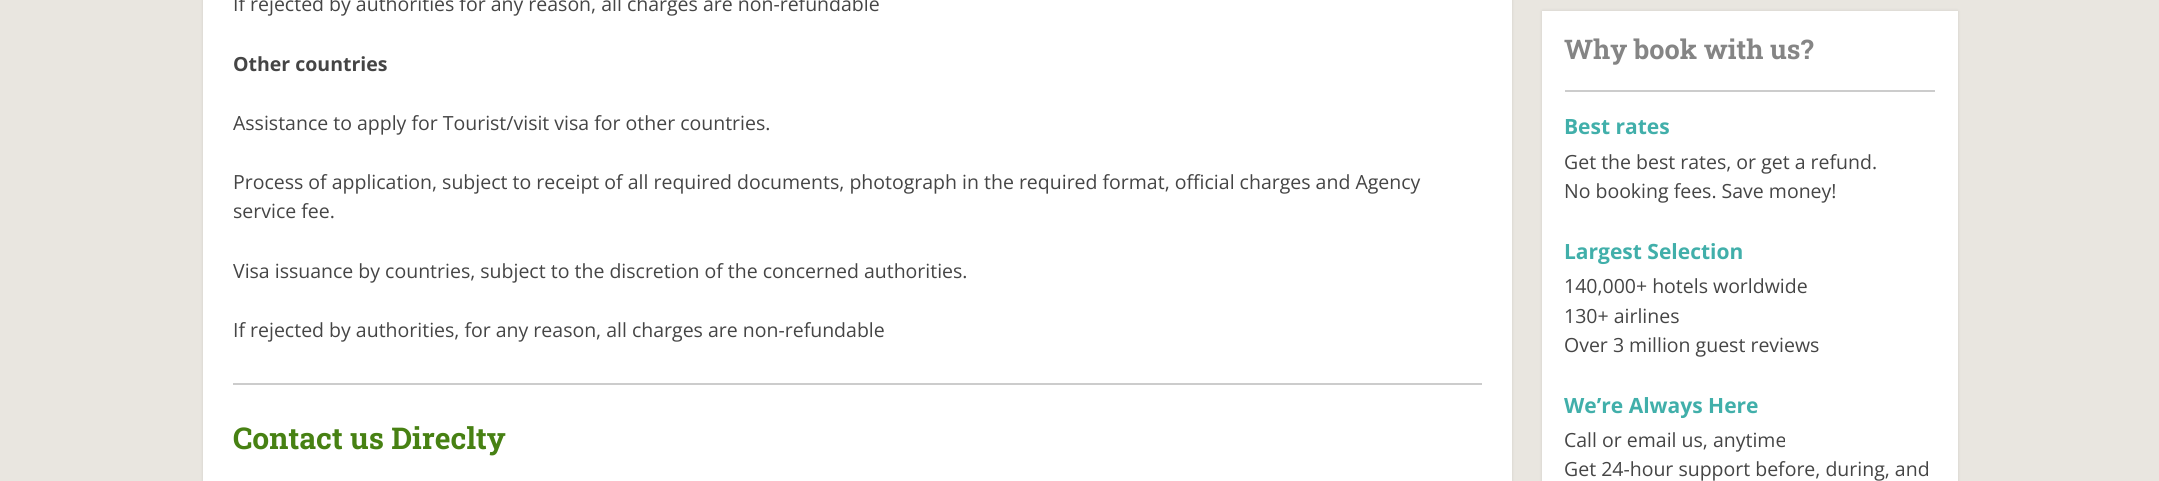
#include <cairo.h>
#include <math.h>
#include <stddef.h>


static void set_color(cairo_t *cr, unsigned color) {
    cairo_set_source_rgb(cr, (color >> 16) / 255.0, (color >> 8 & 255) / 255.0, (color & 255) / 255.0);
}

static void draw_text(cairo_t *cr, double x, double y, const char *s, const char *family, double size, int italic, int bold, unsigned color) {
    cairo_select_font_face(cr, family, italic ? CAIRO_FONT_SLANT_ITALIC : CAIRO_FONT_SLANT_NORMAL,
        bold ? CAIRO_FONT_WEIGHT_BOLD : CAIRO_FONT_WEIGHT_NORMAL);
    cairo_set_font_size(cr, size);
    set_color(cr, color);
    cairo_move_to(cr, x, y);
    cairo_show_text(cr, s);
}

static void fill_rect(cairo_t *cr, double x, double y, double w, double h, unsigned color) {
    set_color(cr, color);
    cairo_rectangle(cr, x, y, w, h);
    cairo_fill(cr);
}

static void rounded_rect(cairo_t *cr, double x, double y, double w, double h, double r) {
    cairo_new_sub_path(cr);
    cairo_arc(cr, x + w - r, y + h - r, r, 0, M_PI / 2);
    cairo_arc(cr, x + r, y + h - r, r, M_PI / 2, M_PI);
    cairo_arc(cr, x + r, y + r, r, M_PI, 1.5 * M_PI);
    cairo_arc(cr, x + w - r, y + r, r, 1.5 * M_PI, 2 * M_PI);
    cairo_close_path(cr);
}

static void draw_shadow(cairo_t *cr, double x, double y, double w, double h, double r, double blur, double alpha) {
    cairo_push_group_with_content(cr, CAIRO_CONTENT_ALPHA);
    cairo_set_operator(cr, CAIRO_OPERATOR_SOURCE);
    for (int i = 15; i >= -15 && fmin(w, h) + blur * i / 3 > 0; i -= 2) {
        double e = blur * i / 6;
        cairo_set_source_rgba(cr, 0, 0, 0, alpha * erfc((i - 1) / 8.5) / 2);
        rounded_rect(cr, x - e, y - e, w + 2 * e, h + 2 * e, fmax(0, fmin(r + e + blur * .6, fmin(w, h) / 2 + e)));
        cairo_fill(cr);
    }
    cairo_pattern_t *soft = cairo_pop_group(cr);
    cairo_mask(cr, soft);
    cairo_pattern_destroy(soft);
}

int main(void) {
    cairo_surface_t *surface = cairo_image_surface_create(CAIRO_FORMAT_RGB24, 2159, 481);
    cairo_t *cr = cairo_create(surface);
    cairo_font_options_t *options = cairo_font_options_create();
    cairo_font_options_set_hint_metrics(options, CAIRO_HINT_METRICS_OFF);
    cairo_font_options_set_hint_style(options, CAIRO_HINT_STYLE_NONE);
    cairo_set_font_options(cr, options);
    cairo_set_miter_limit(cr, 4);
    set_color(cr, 0xE9E6E0);
    cairo_paint(cr);
    set_color(cr, 0x000000);
    draw_shadow(cr, 203, -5, 1309, 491, 0, 1.5, 0.1);
    fill_rect(cr, 203, 0, 1309, 481, 0xFFFFFF);
    draw_text(cr, 233, 11, "If rejected by authorities for any reason, all charges are non-refundable", "Open Sans", 19.5, 0, 0, 0x454545);
    draw_text(cr, 233, 71, "Other countries", "Open Sans", 19.5, 0, 1, 0x454545);
    draw_text(cr, 233, 130, "Assistance to apply for Tourist/visit visa for other countries.", "Open Sans", 19.5, 0, 0, 0x454545);
    draw_text(cr, 233, 189, "Process of application, subject to receipt of all required documents, photograph in the required format, official charges and Agency", "Open Sans", 19.5, 0, 0, 0x454545);
    draw_text(cr, 233, 218, "service fee.", "Open Sans", 19.5, 0, 0, 0x454545);
    draw_text(cr, 233, 278, "Visa issuance by countries, subject to the discretion of the concerned authorities.", "Open Sans", 19.5, 0, 0, 0x454545);
    draw_text(cr, 233, 337, "If rejected by authorities, for any reason, all charges are non-refundable", "Open Sans", 19.5, 0, 0, 0x454545);
    fill_rect(cr, 233, 383, 1249, 2, 0xCCCCCC);
    draw_text(cr, 233, 449, "Contact us Direclty", "Roboto Slab", 30, 0, 1, 0x478113);
    set_color(cr, 0x000000);
    draw_shadow(cr, 1542, 11, 416, 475, 0, 1.5, 0.1);
    fill_rect(cr, 1542, 11, 416, 470, 0xFFFFFF);
    fill_rect(cr, 1565, 90, 370, 2, 0xCCCCCC);
    draw_text(cr, 1564, 59, "Why book with us?", "Roboto Slab", 27, 0, 1, 0x858585);
    draw_text(cr, 1564, 134, "Best rates", "Open Sans", 21, 0, 1, 0x41AFAA);
    draw_text(cr, 1564, 169, "Get the best rates, or get a refund.", "Open Sans", 19.5, 0, 0, 0x454545);
    draw_text(cr, 1564, 198, "No booking fees. Save money!", "Open Sans", 19.5, 0, 0, 0x454545);
    draw_text(cr, 1564, 259, "Largest Selection", "Open Sans", 21, 0, 1, 0x41AFAA);
    draw_text(cr, 1564, 293, "140,000+ hotels worldwide", "Open Sans", 19.5, 0, 0, 0x454545);
    draw_text(cr, 1564, 323, "130+ airlines", "Open Sans", 19.5, 0, 0, 0x454545);
    draw_text(cr, 1564, 352, "Over 3 million guest reviews", "Open Sans", 19.5, 0, 0, 0x454545);
    draw_text(cr, 1564, 413, "We’re Always Here", "Open Sans", 21, 0, 1, 0x41AFAA);
    draw_text(cr, 1564, 447, "Call or email us, anytime", "Open Sans", 19.5, 0, 0, 0x454545);
    draw_text(cr, 1564, 476, "Get 24-hour support before, during, and", "Open Sans", 19.5, 0, 0, 0x454545);
    cairo_surface_write_to_png(surface, "output.png");
    cairo_font_options_destroy(options);
    cairo_destroy(cr);
    cairo_surface_destroy(surface);
    return 0;
}
